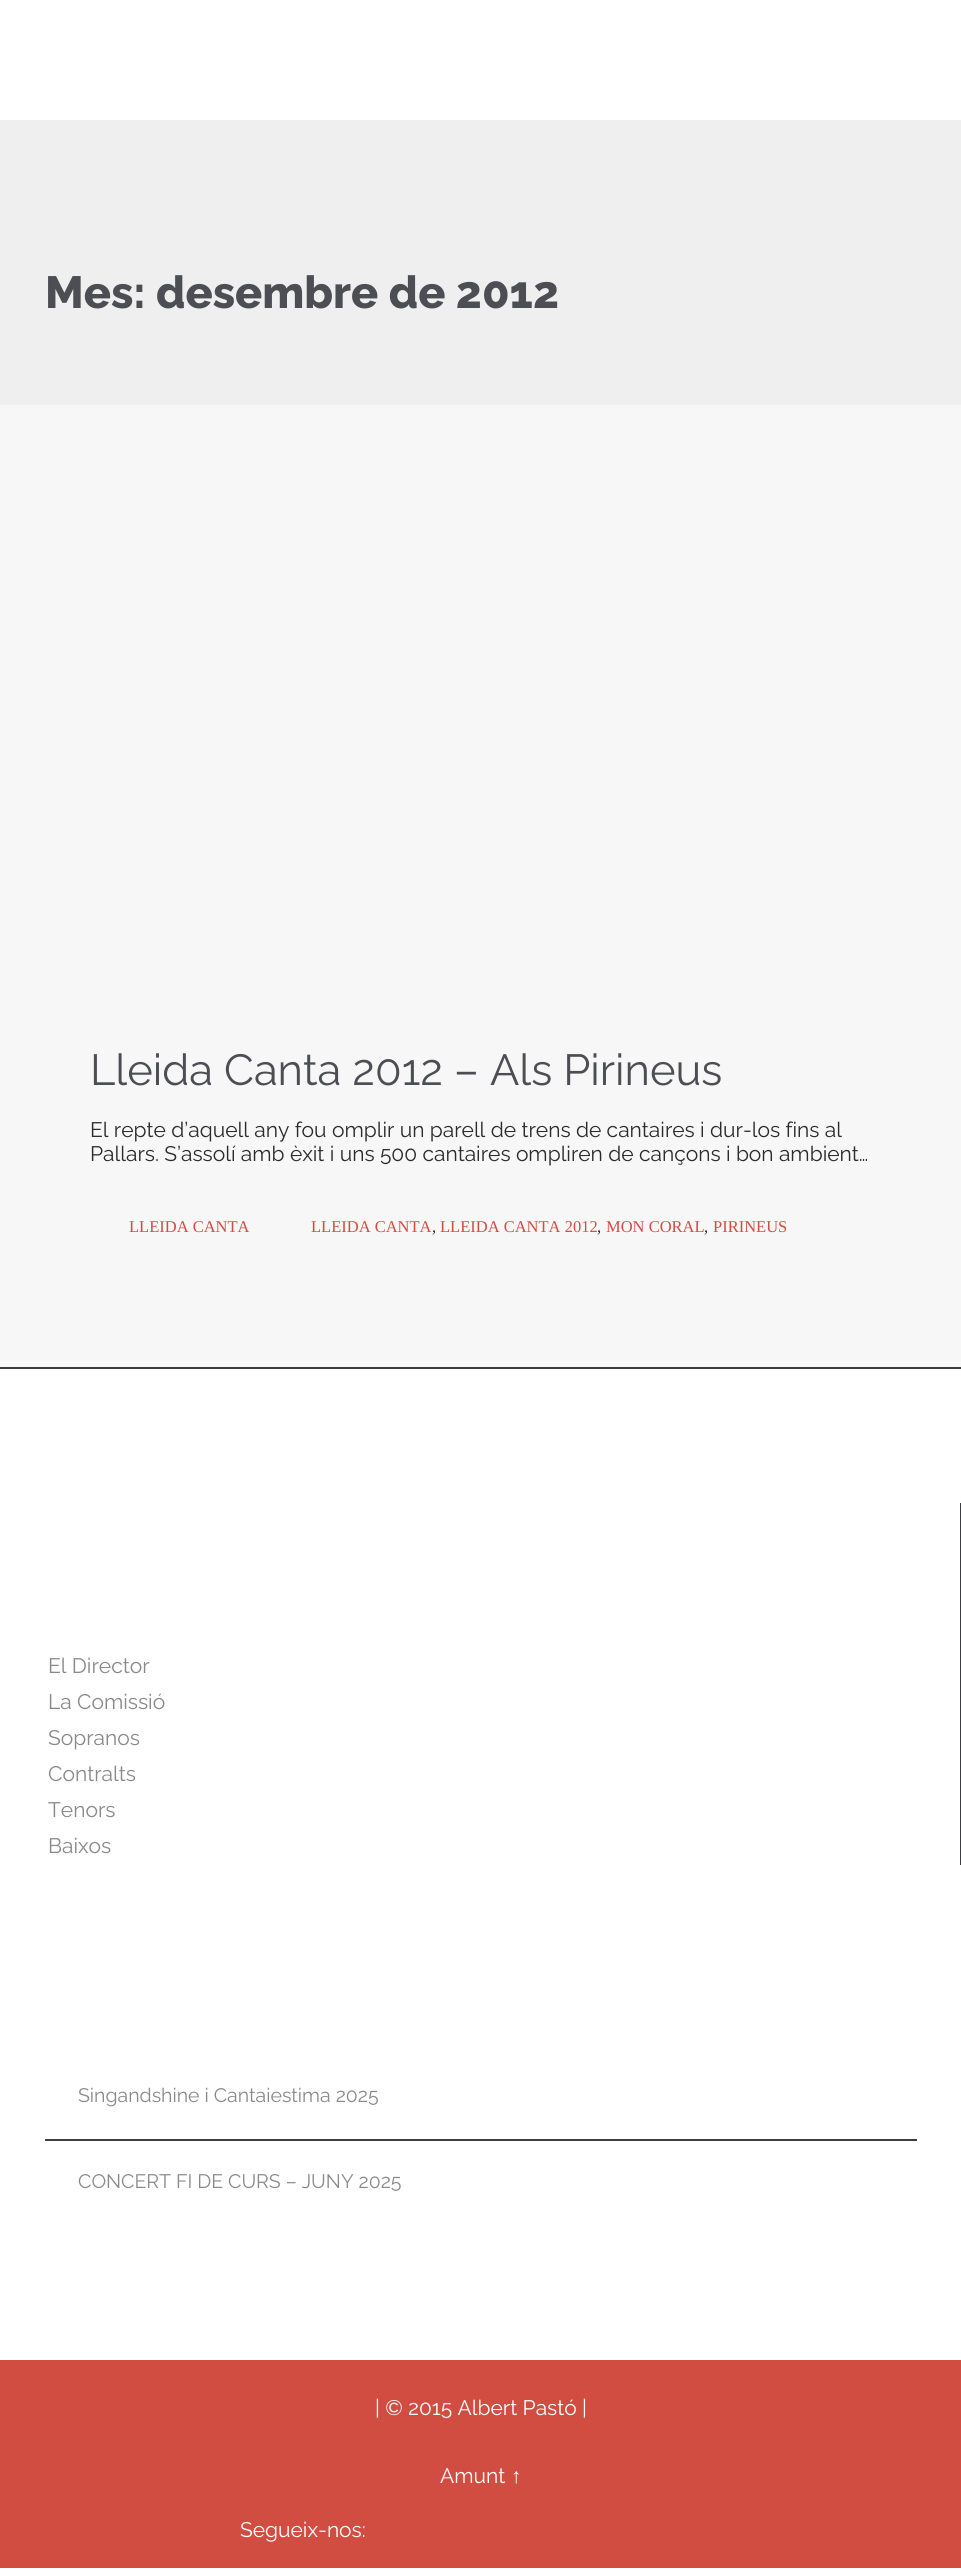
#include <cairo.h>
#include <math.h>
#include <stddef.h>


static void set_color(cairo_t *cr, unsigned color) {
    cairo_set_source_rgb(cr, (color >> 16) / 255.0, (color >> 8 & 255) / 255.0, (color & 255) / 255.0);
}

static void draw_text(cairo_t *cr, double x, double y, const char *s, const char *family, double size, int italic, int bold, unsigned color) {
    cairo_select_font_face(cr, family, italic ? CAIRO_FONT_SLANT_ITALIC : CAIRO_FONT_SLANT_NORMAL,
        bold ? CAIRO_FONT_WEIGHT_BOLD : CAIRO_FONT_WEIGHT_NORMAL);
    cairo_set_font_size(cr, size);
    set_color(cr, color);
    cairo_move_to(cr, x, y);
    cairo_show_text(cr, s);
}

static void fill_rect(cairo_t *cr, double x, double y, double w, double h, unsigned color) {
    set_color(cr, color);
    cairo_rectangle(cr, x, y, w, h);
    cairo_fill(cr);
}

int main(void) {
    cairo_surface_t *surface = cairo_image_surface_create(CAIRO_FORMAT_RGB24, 961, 2570);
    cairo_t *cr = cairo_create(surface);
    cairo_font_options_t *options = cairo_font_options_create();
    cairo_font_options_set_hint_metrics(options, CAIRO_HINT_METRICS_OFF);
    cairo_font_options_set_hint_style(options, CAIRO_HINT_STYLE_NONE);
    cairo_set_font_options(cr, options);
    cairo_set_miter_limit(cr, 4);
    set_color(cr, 0xFFFFFF);
    cairo_paint(cr);
    fill_rect(cr, 0, 120, 961, 285, 0xEFEFEF);
    draw_text(cr, 45, 308, "Mes: desembre de 2012", "Raleway ExtraBold", 45, 0, 0, 0x4D4E53);
    fill_rect(cr, 0, 405, 961, 962, 0xF7F7F7);
    draw_text(cr, 90, 1085, "Lleida Canta 2012 – Als Pirineus", "Raleway", 43.5, 0, 0, 0x4D4E53);
    draw_text(cr, 90, 1137, "El repte d’aquell any fou omplir un parell de trens de cantaires i dur-los fins al", "Raleway", 21, 0, 0, 0x2B2B2B);
    draw_text(cr, 90, 1161, "Pallars. S’assolí amb èxit i uns 500 cantaires ompliren de cançons i bon ambient…", "Raleway", 21, 0, 0, 0x2B2B2B);
    draw_text(cr, 129, 1232, "LLEIDA CANTA", "Liberation Serif", 16.5, 0, 0, 0xD14D42);
    draw_text(cr, 311, 1232, "LLEIDA CANTA", "Liberation Serif", 16.5, 0, 0, 0xD14D42);
    draw_text(cr, 432, 1232, ",", "Liberation Serif", 16.5, 0, 0, 0x2B2B2B);
    draw_text(cr, 440, 1232, "LLEIDA CANTA 2012", "Liberation Serif", 16.5, 0, 0, 0xD14D42);
    draw_text(cr, 597, 1232, ",", "Liberation Serif", 16.5, 0, 0, 0x2B2B2B);
    draw_text(cr, 606, 1232, "MON CORAL", "Liberation Serif", 16.5, 0, 0, 0xD14D42);
    draw_text(cr, 704, 1232, ",", "Liberation Serif", 16.5, 0, 0, 0x2B2B2B);
    draw_text(cr, 713, 1232, "PIRINEUS", "Liberation Serif", 16.5, 0, 0, 0xD14D42);
    fill_rect(cr, 0, 1367, 961, 2, 0x3C3D40);
    fill_rect(cr, 960, 1503, 1, 362, 0x3C3D40);
    draw_text(cr, 48, 1673, "El Director", "Raleway", 21, 0, 0, 0x898989);
    draw_text(cr, 48, 1709, "La Comissió", "Raleway", 21, 0, 0, 0x898989);
    draw_text(cr, 48, 1745, "Sopranos", "Raleway", 21, 0, 0, 0x898989);
    draw_text(cr, 48, 1781, "Contralts", "Raleway", 21, 0, 0, 0x898989);
    draw_text(cr, 48, 1817, "Tenors", "Raleway", 21, 0, 0, 0x898989);
    draw_text(cr, 48, 1853, "Baixos", "Raleway", 21, 0, 0, 0x898989);
    draw_text(cr, 78, 2102, "Singandshine i Cantaiestima 2025", "Raleway", 19.5, 0, 0, 0x898989);
    fill_rect(cr, 45, 2139, 872, 2, 0x3C3D40);
    draw_text(cr, 78, 2188, "CONCERT FI DE CURS – JUNY 2025", "Raleway", 19.5, 0, 0, 0x898989);
    fill_rect(cr, 0, 2360, 961, 208, 0xD14D42);
    draw_text(cr, 375, 2415, "| © 2015 Albert Pastó |", "Raleway", 21, 0, 0, 0xFFFFFF);
    draw_text(cr, 440, 2483, "Amunt", "Raleway", 21, 0, 0, 0xFFFFFF);
    draw_text(cr, 511, 2483, "↑", "Liberation Serif", 21, 0, 0, 0xFFFFFF);
    draw_text(cr, 240, 2537, "Segueix-nos:", "Raleway", 21, 0, 0, 0xFFFFFF);
    cairo_surface_write_to_png(surface, "output.png");
    cairo_font_options_destroy(options);
    cairo_destroy(cr);
    cairo_surface_destroy(surface);
    return 0;
}
